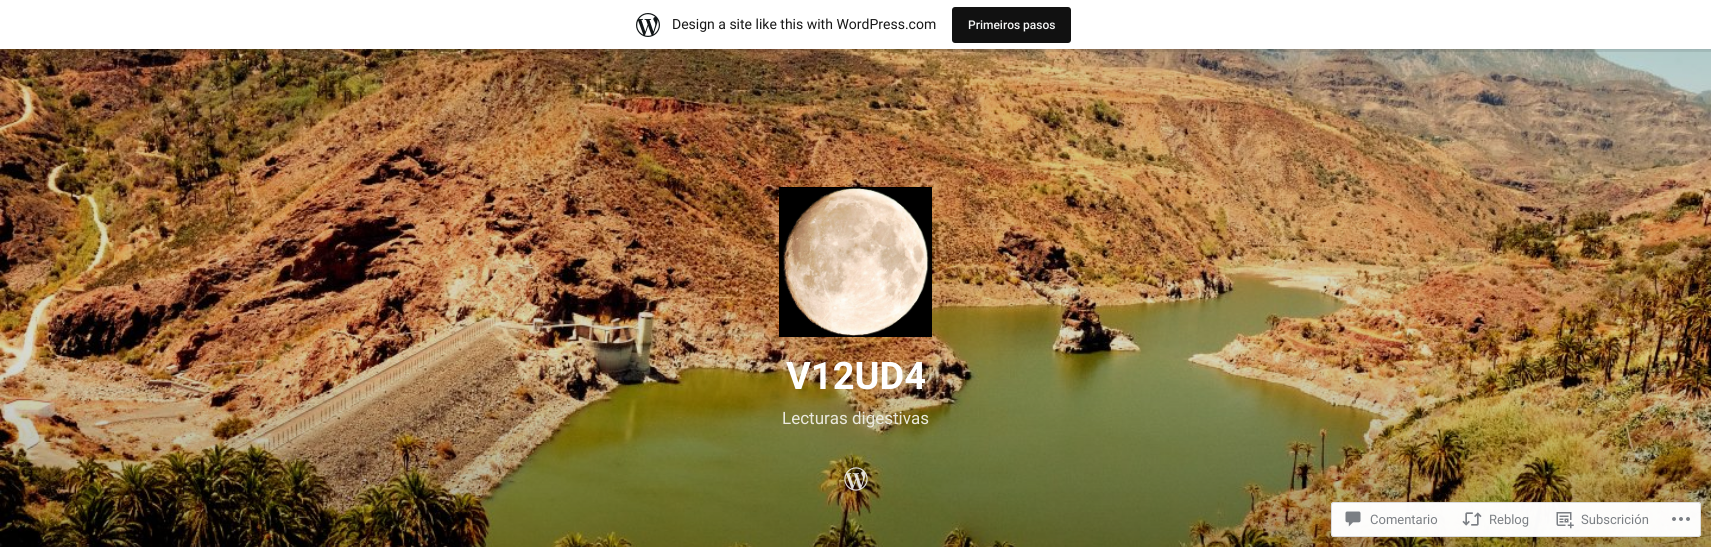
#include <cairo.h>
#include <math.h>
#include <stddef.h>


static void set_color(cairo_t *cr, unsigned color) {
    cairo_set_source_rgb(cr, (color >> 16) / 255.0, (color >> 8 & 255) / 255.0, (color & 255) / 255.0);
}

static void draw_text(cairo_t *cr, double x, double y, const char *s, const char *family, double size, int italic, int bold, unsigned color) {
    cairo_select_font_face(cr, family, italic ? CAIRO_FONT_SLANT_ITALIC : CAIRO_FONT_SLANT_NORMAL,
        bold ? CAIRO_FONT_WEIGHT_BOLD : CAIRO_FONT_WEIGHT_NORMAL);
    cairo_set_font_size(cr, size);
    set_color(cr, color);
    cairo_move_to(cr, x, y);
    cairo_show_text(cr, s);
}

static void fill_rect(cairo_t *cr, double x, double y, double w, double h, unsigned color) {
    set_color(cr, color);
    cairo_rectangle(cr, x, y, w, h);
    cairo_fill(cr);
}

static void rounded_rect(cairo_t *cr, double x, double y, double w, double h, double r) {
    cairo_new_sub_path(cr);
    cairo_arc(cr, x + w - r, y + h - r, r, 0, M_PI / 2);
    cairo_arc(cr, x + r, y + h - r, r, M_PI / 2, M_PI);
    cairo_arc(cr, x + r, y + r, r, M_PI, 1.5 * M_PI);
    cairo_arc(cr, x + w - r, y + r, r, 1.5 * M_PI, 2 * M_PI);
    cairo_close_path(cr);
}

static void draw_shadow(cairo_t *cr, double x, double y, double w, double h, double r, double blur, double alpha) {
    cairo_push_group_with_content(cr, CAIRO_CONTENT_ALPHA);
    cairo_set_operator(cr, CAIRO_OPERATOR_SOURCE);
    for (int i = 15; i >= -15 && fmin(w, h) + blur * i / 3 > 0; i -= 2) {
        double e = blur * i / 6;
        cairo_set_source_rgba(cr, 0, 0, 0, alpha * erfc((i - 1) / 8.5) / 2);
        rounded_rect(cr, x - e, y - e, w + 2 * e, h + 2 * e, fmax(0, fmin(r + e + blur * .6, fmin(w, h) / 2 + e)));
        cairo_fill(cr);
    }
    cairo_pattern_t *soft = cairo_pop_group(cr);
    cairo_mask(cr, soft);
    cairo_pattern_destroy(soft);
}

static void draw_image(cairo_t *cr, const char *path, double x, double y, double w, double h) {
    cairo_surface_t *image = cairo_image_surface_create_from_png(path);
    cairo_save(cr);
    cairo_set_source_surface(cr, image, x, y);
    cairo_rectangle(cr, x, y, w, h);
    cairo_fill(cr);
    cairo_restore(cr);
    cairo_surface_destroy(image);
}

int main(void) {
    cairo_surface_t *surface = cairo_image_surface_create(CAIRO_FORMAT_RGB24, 1711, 547);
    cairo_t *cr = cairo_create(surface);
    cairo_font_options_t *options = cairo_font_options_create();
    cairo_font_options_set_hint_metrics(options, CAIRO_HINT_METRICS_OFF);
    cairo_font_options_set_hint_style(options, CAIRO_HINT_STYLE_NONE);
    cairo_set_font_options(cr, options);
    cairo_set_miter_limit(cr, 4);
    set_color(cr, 0xFFFFFF);
    cairo_paint(cr);
    draw_image(cr, "assets/img2.png", 0, 49, 1711, 498);
    set_color(cr, 0x000000);
    draw_shadow(cr, 0, 1, 1711, 49, 0, 1, 0.05);
    cairo_set_source_rgba(cr, 0, 0, 0, 0.08);
    cairo_new_path(cr);
    cairo_move_to(cr, 1, 49);
    cairo_line_to(cr, 1, 52);
    cairo_line_to(cr, 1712, 52);
    cairo_line_to(cr, 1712, 3);
    cairo_line_to(cr, 1711, 3);
    cairo_line_to(cr, 1711, 49);
    cairo_close_path(cr);
    cairo_fill(cr);
    fill_rect(cr, 0, 0, 1711, 49, 0xFFFFFF);
    draw_image(cr, "assets/img1.png", 636, 13, 24, 24);
    draw_text(cr, 672, 29, "Design a site like this with WordPress.com", "Roboto", 14, 0, 0, 0x171717);
    set_color(cr, 0x111111);
    rounded_rect(cr, 952, 7, 119, 36, 3);
    cairo_fill(cr);
    draw_text(cr, 968, 29, "Primeiros pasos", "Roboto Medium", 12, 0, 0, 0xF6F7F7);
    draw_image(cr, "assets/img3.png", 779, 187, 153, 150);
    draw_text(cr, 786, 389, "V12UD4", "Roboto", 38, 0, 1, 0xFFFFFF);
    draw_text(cr, 782, 424, "Lecturas digestivas", "Roboto", 17, 0, 0, 0xEBEAE0);
    draw_image(cr, "assets/img4.png", 844, 467, 24, 24);
    cairo_set_source_rgba(cr, 1, 1, 1, 0.98);
    rounded_rect(cr, 1331, 502, 370, 35, 3);
    cairo_fill(cr);
    rounded_rect(cr, 1331.5, 502.5, 369, 34, 2.5);
    cairo_set_source_rgba(cr, 0.863, 0.863, 0.871, 0.98);
    cairo_set_line_width(cr, 1);
    cairo_stroke(cr);
    draw_image(cr, "assets/img5.png", 1345, 511, 16, 16);
    draw_text(cr, 1370, 524, "Comentario", "Roboto", 13, 0, 0, 0x7B7F84);
    draw_image(cr, "assets/img6.png", 1462, 512, 20, 14);
    draw_text(cr, 1489, 524, "Reblog", "Roboto", 13, 0, 0, 0x7B7F84);
    draw_image(cr, "assets/img7.png", 1556, 512, 18, 17);
    draw_text(cr, 1581, 524, "Subscrición", "Roboto", 13, 0, 0, 0x7B7F84);
    draw_image(cr, "assets/img8.png", 1672, 517, 18, 4);
    cairo_surface_write_to_png(surface, "output.png");
    cairo_font_options_destroy(options);
    cairo_destroy(cr);
    cairo_surface_destroy(surface);
    return 0;
}
